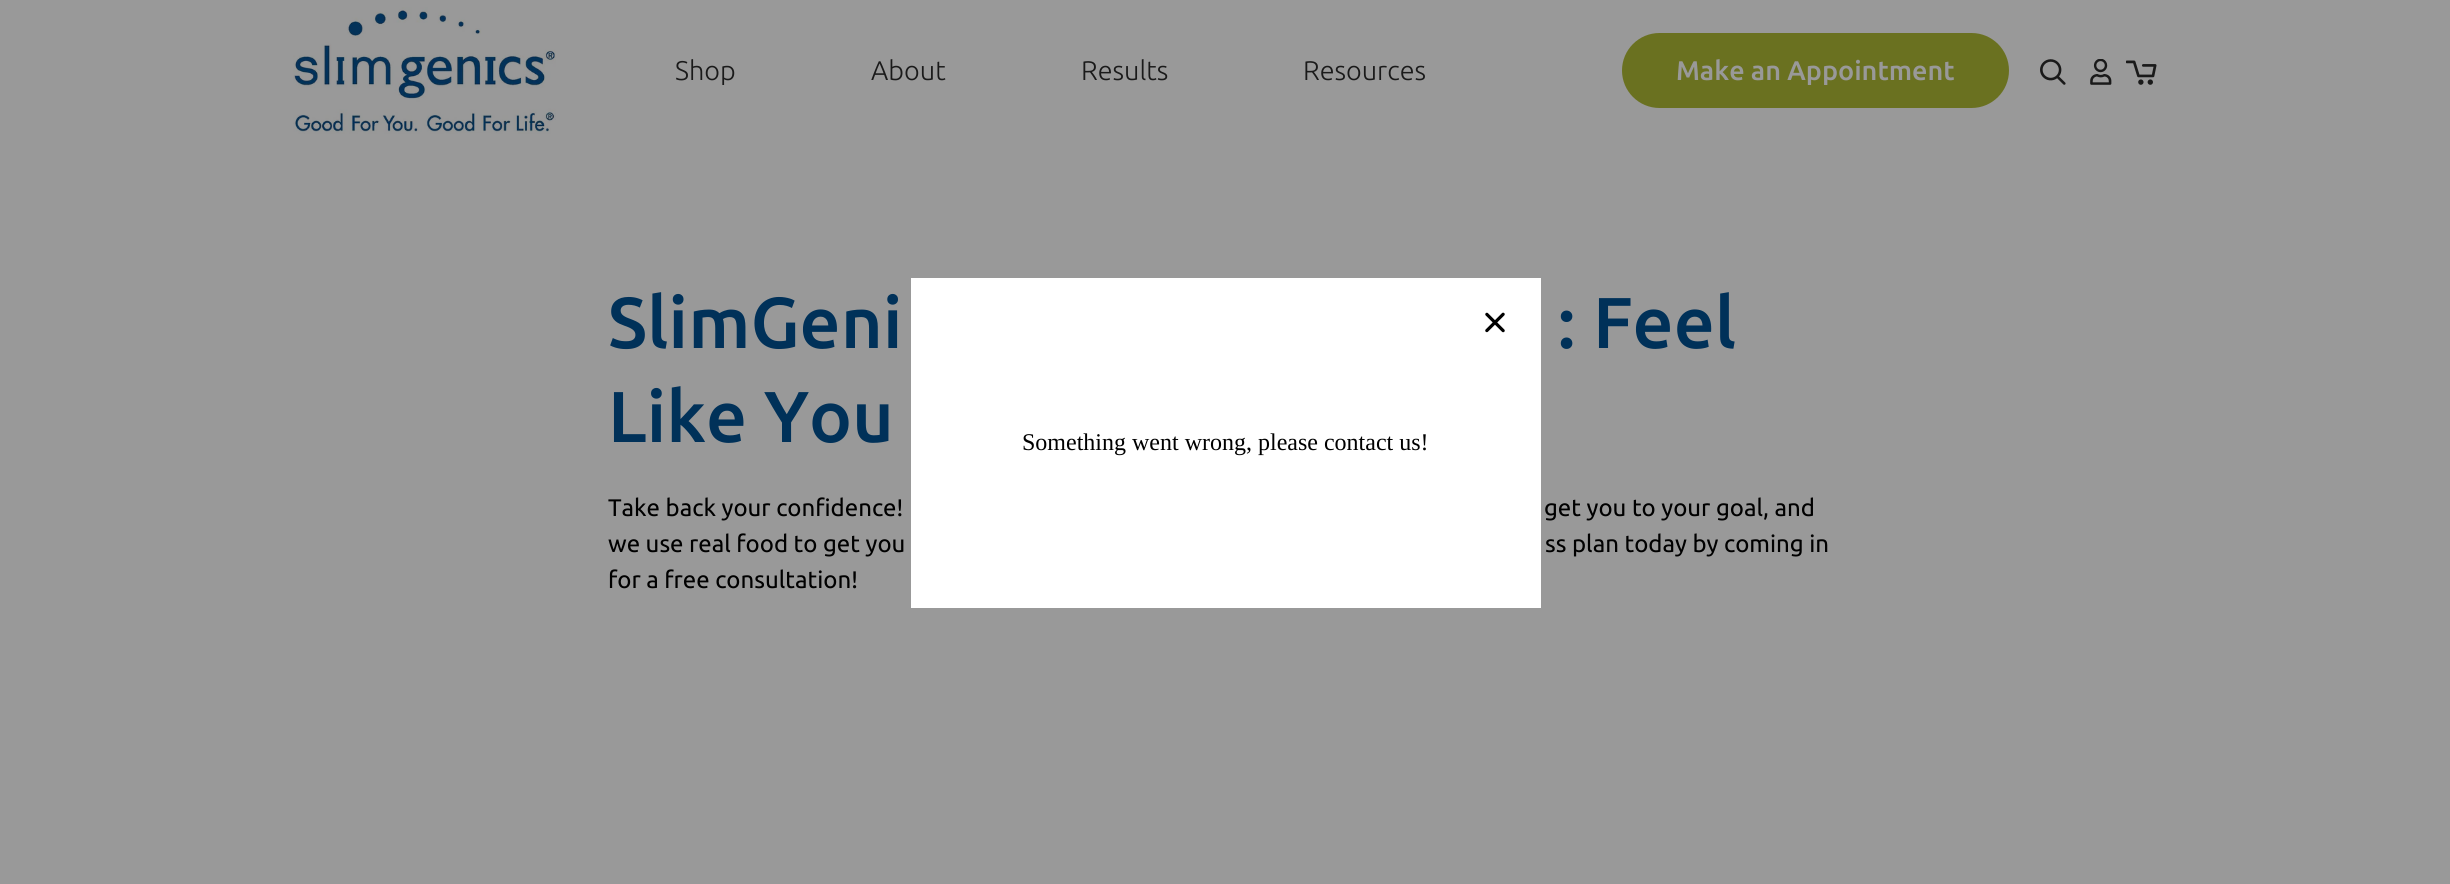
#include <cairo.h>
#include <math.h>
#include <stddef.h>


static void set_color(cairo_t *cr, unsigned color) {
    cairo_set_source_rgb(cr, (color >> 16) / 255.0, (color >> 8 & 255) / 255.0, (color & 255) / 255.0);
}

static void draw_text(cairo_t *cr, double x, double y, const char *s, const char *family, double size, int italic, int bold, unsigned color) {
    cairo_select_font_face(cr, family, italic ? CAIRO_FONT_SLANT_ITALIC : CAIRO_FONT_SLANT_NORMAL,
        bold ? CAIRO_FONT_WEIGHT_BOLD : CAIRO_FONT_WEIGHT_NORMAL);
    cairo_set_font_size(cr, size);
    set_color(cr, color);
    cairo_move_to(cr, x, y);
    cairo_show_text(cr, s);
}

static void fill_rect(cairo_t *cr, double x, double y, double w, double h, unsigned color) {
    set_color(cr, color);
    cairo_rectangle(cr, x, y, w, h);
    cairo_fill(cr);
}

static void rounded_rect(cairo_t *cr, double x, double y, double w, double h, double r) {
    cairo_new_sub_path(cr);
    cairo_arc(cr, x + w - r, y + h - r, r, 0, M_PI / 2);
    cairo_arc(cr, x + r, y + h - r, r, M_PI / 2, M_PI);
    cairo_arc(cr, x + r, y + r, r, M_PI, 1.5 * M_PI);
    cairo_arc(cr, x + w - r, y + r, r, 1.5 * M_PI, 2 * M_PI);
    cairo_close_path(cr);
}

static void draw_image(cairo_t *cr, const char *path, double x, double y, double w, double h) {
    cairo_surface_t *image = cairo_image_surface_create_from_png(path);
    cairo_save(cr);
    cairo_set_source_surface(cr, image, x, y);
    cairo_rectangle(cr, x, y, w, h);
    cairo_fill(cr);
    cairo_restore(cr);
    cairo_surface_destroy(image);
}

int main(void) {
    cairo_surface_t *surface = cairo_image_surface_create(CAIRO_FORMAT_RGB24, 2450, 884);
    cairo_t *cr = cairo_create(surface);
    cairo_font_options_t *options = cairo_font_options_create();
    cairo_font_options_set_hint_metrics(options, CAIRO_HINT_METRICS_OFF);
    cairo_font_options_set_hint_style(options, CAIRO_HINT_STYLE_NONE);
    cairo_set_font_options(cr, options);
    cairo_set_miter_limit(cr, 4);
    set_color(cr, 0x999999);
    cairo_paint(cr);
    draw_image(cr, "assets/img1.png", 293, 7, 263, 127);
    draw_text(cr, 675, 80, "Shop", "Ubuntu Light", 27, 0, 0, 0x1A1A1A);
    draw_text(cr, 871, 80, "About", "Ubuntu Light", 27, 0, 0, 0x1A1A1A);
    draw_text(cr, 1081, 80, "Results", "Ubuntu Light", 27, 0, 0, 0x1A1A1A);
    draw_text(cr, 1303, 80, "Resources", "Ubuntu Light", 27, 0, 0, 0x1A1A1A);
    set_color(cr, 0x6A7120);
    rounded_rect(cr, 1622, 33, 387, 75, 37.5);
    cairo_fill(cr);
    draw_text(cr, 1676, 80, "Make an Appointment", "Ubuntu Medium", 27, 0, 0, 0x999999);
    draw_image(cr, "assets/img2.png", 2040, 59, 26, 26);
    draw_image(cr, "assets/img3.png", 2090, 59, 22, 26);
    draw_image(cr, "assets/img4.png", 2126, 60, 31, 25);
    draw_text(cr, 608, 348, "SlimGeni", "Ubuntu Medium", 72, 0, 0, 0x003159);
    draw_text(cr, 1557, 348, ": Feel", "Ubuntu Medium", 72, 0, 0, 0x003159);
    draw_text(cr, 608, 442, "Like You", "Ubuntu Medium", 72, 0, 0, 0x003159);
    draw_text(cr, 608, 516, "Take back your confidence!", "Ubuntu", 24, 0, 0, 0x000000);
    draw_text(cr, 1544, 516, "get you to your goal, and", "Ubuntu", 24, 0, 0, 0x000000);
    draw_text(cr, 608, 552, "we use real food to get you", "Ubuntu", 24, 0, 0, 0x000000);
    draw_text(cr, 1545, 552, "ss plan today by coming in", "Ubuntu", 24, 0, 0, 0x000000);
    draw_text(cr, 608, 588, "for a free consultation!", "Ubuntu", 24, 0, 0, 0x000000);
    fill_rect(cr, 911, 278, 630, 330, 0xFFFFFF);
    draw_image(cr, "assets/img5.png", 1485, 312, 20, 21);
    draw_text(cr, 1022, 450, "Something went wrong, please contact us!", "Liberation Serif", 24, 0, 0, 0x000000);
    cairo_surface_write_to_png(surface, "output.png");
    cairo_font_options_destroy(options);
    cairo_destroy(cr);
    cairo_surface_destroy(surface);
    return 0;
}
